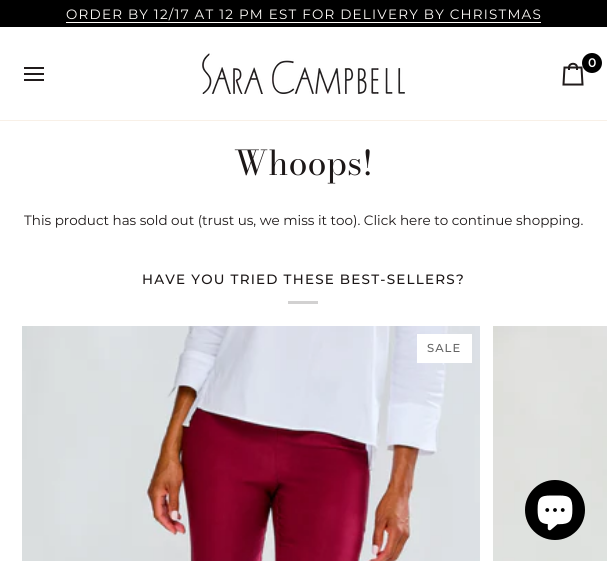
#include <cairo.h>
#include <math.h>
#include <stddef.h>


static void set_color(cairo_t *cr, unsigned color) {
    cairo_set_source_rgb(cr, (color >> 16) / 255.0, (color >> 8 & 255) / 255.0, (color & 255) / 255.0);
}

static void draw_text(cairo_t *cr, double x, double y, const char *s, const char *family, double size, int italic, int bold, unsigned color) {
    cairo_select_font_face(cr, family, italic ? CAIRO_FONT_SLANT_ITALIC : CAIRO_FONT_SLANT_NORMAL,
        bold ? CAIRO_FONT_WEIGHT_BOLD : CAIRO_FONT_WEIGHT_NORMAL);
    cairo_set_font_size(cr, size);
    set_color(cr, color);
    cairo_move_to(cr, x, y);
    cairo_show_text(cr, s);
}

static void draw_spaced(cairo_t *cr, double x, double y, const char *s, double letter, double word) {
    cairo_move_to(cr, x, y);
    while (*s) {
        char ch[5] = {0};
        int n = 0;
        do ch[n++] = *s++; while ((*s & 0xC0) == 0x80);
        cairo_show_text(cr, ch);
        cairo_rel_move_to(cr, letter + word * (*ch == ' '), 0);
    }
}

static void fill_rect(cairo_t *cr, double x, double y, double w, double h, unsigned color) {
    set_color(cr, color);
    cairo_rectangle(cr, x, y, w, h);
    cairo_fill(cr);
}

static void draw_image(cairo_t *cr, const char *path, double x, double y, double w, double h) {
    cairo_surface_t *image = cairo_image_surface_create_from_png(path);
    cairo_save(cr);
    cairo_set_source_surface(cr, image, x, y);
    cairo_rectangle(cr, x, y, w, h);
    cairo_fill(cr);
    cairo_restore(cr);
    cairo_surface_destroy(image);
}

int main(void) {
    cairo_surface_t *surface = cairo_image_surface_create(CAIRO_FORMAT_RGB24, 607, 561);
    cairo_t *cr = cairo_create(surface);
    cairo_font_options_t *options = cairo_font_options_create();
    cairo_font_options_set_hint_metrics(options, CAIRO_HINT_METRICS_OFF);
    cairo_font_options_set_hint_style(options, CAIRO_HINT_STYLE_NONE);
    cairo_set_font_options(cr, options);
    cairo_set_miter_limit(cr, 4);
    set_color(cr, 0xFFFFFF);
    cairo_paint(cr);
    fill_rect(cr, 0, 0, 607, 27, 0x000000);
    cairo_select_font_face(cr, "Montserrat Thin", CAIRO_FONT_SLANT_NORMAL, CAIRO_FONT_WEIGHT_NORMAL);
    cairo_set_font_size(cr, 13.5);
    set_color(cr, 0xFFFCF9);
    draw_spaced(cr, 66, 19, "ORDER BY 12/17 AT 12 PM EST FOR DELIVERY BY CHRISTMAS", 1.22, 0);
    fill_rect(cr, 66, 22, 475, 1, 0xFFFCF9);
    fill_rect(cr, 0, 120, 607, 1, 0xF8F0E7);
    draw_image(cr, "assets/img1.png", 202, 53, 203, 41);
    cairo_new_path(cr);
    cairo_move_to(cr, 577, 70);
    cairo_line_to(cr, 577, 67.5);
    cairo_line_to(cr, 581.5, 67.5);
    cairo_line_to(cr, 582.5, 84.5);
    cairo_line_to(cr, 563.5, 84.5);
    cairo_line_to(cr, 564.5, 67.5);
    cairo_line_to(cr, 569, 67.5);
    cairo_curve_to(cr, 569, 62.5, 577, 62.5, 577, 67.5);
    cairo_line_to(cr, 569, 67.5);
    cairo_line_to(cr, 569, 70);
    set_color(cr, 0x201B1B);
    cairo_stroke(cr);
    set_color(cr, 0x000000);
    cairo_arc(cr, 592, 63, 10, 0, 2 * M_PI);
    cairo_fill(cr);
    draw_text(cr, 588, 67, "0", "Montserrat", 12, 0, 1, 0xFFFFFF);
    cairo_new_path(cr);
    cairo_move_to(cr, 43, 68);
    cairo_line_to(cr, 25, 68);
    cairo_move_to(cr, 43, 74);
    cairo_line_to(cr, 25, 74);
    cairo_move_to(cr, 43, 80);
    cairo_line_to(cr, 25, 80);
    set_color(cr, 0x201B1B);
    cairo_set_line_cap(cr, CAIRO_LINE_CAP_SQUARE);
    cairo_stroke(cr);
    draw_text(cr, 234, 175, "Whoops!", "Bodoni Moda", 34, 0, 0, 0x1C1717);
    draw_text(cr, 24, 225, "This product has sold out (trust us, we miss it too). Click here to continue shopping.", "Montserrat Thin", 13.5, 0, 0, 0x1C1717);
    cairo_select_font_face(cr, "Montserrat Medium", CAIRO_FONT_SLANT_NORMAL, CAIRO_FONT_WEIGHT_NORMAL);
    draw_spaced(cr, 142, 284, "HAVE YOU TRIED THESE BEST-SELLERS?", 1.22, 0);
    fill_rect(cr, 288, 301, 30, 3, 0xD2D1D1);
    draw_image(cr, "assets/img2.png", 22, 326, 458, 235);
    fill_rect(cr, 417, 334, 55, 29, 0xFFFFFF);
    cairo_set_font_size(cr, 11.5);
    set_color(cr, 0x656565);
    draw_spaced(cr, 427, 352, "SALE", 1, 0);
    draw_image(cr, "assets/img3.png", 493, 326, 114, 235);
    set_color(cr, 0x000000);
    cairo_arc(cr, 555, 510, 30, 0, 2 * M_PI);
    cairo_fill(cr);
    draw_image(cr, "assets/img4.png", 537, 495, 36, 36);
    cairo_surface_write_to_png(surface, "output.png");
    cairo_font_options_destroy(options);
    cairo_destroy(cr);
    cairo_surface_destroy(surface);
    return 0;
}
